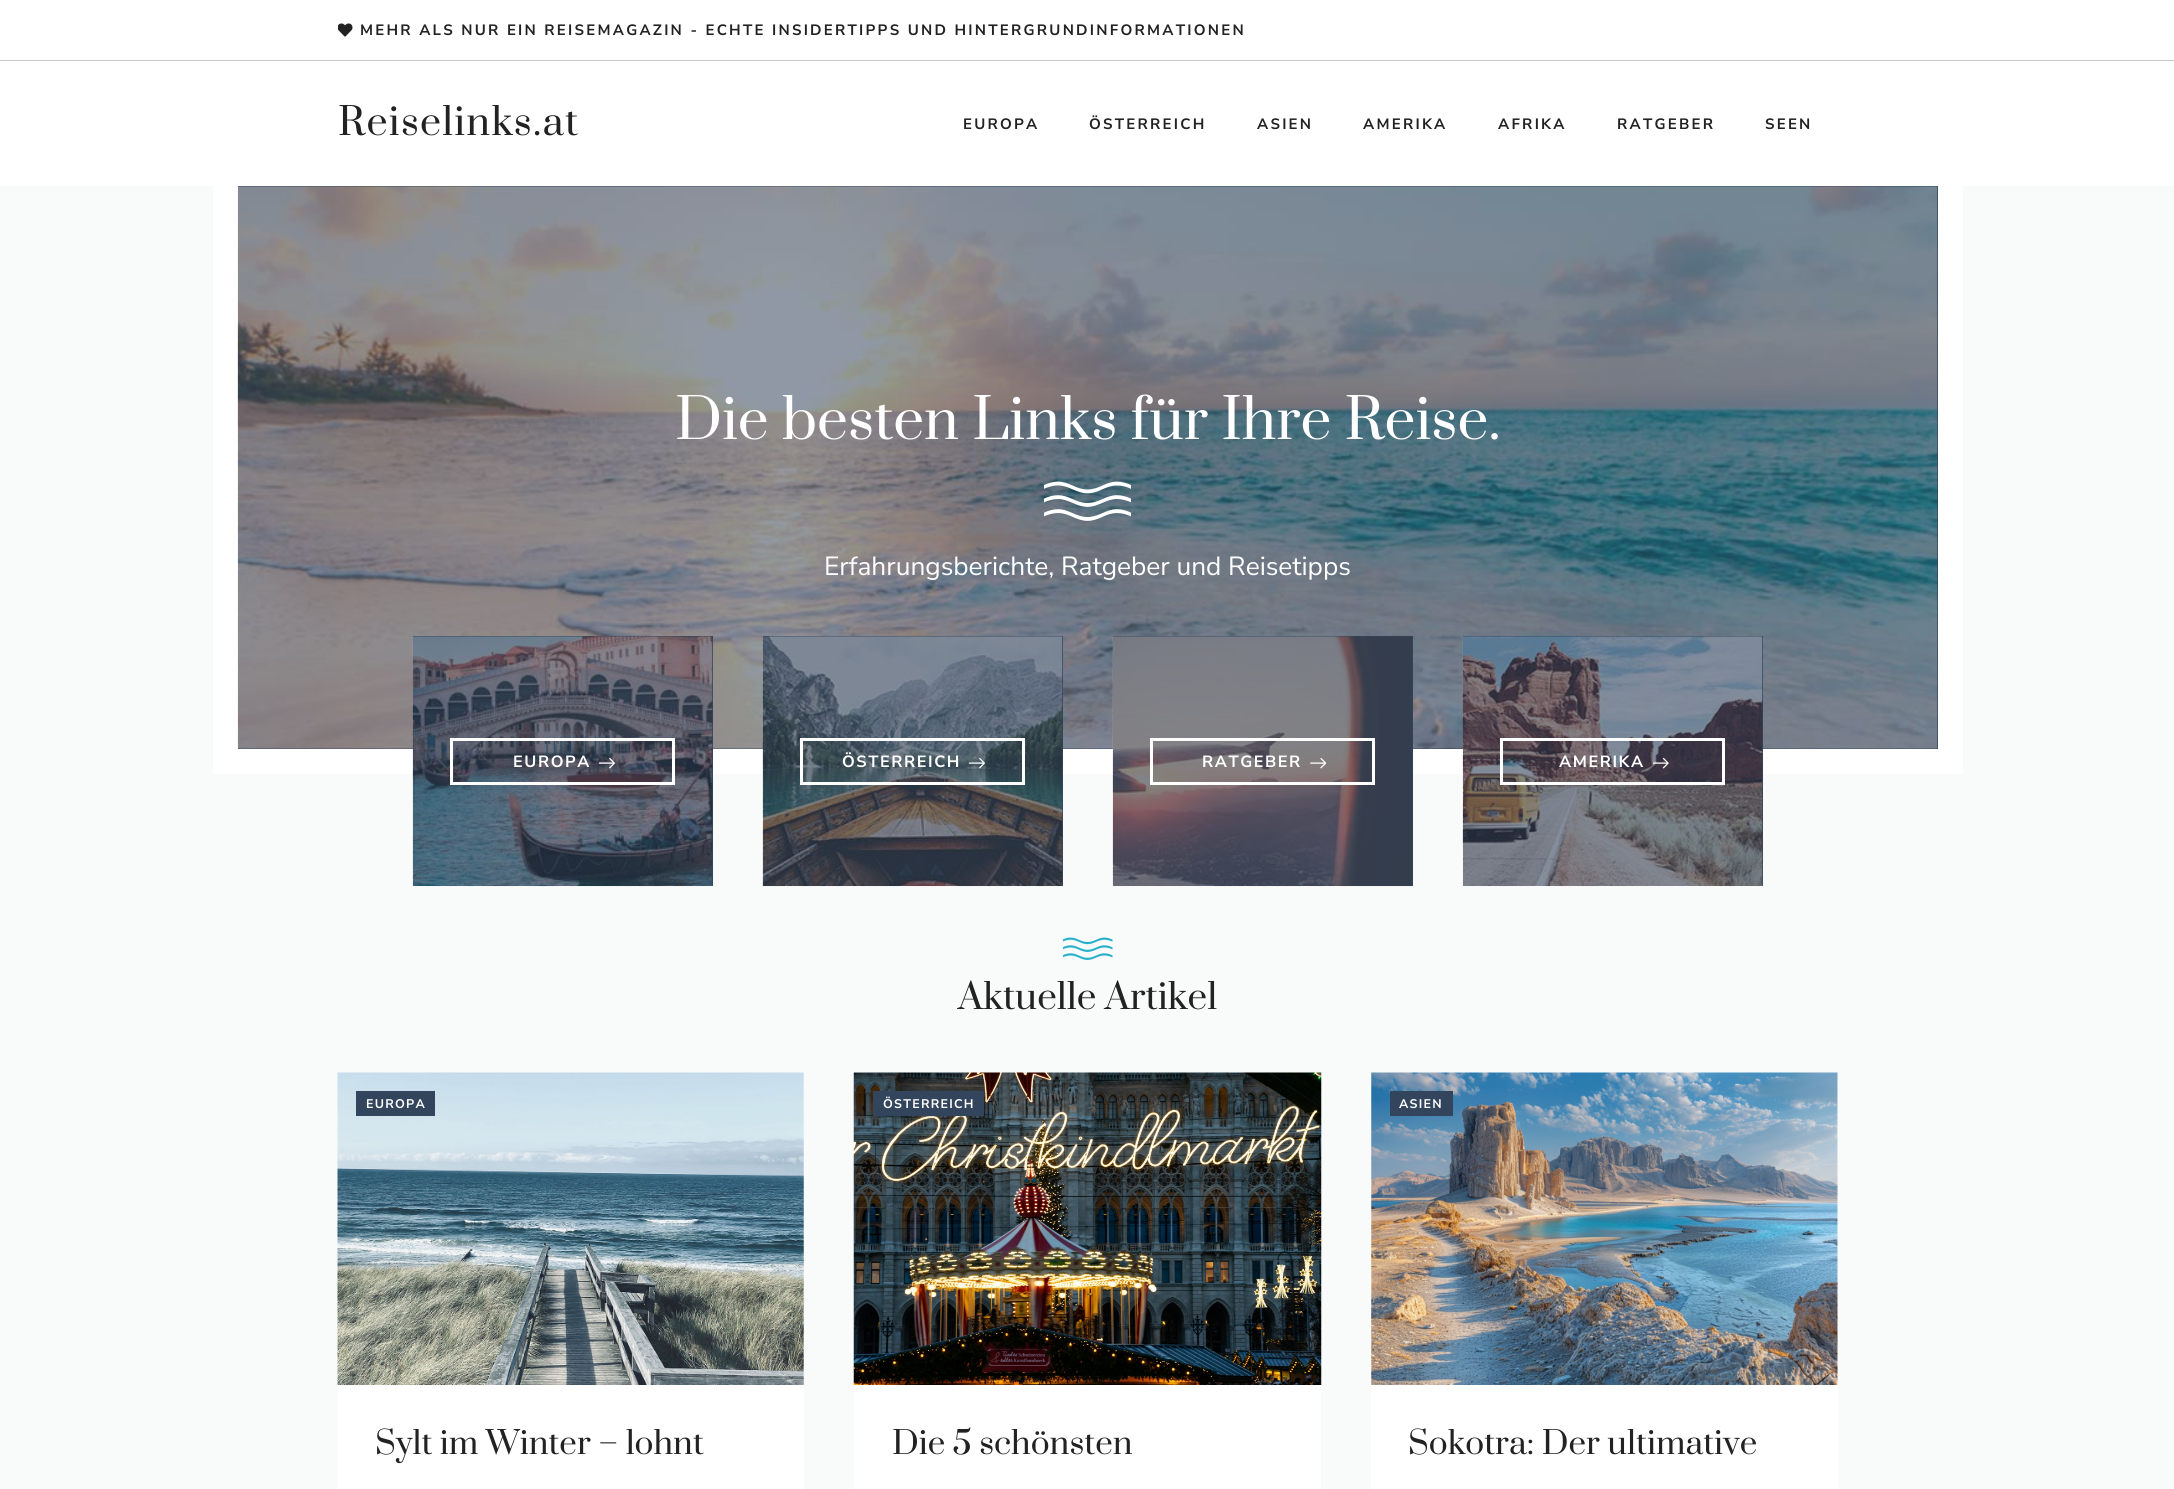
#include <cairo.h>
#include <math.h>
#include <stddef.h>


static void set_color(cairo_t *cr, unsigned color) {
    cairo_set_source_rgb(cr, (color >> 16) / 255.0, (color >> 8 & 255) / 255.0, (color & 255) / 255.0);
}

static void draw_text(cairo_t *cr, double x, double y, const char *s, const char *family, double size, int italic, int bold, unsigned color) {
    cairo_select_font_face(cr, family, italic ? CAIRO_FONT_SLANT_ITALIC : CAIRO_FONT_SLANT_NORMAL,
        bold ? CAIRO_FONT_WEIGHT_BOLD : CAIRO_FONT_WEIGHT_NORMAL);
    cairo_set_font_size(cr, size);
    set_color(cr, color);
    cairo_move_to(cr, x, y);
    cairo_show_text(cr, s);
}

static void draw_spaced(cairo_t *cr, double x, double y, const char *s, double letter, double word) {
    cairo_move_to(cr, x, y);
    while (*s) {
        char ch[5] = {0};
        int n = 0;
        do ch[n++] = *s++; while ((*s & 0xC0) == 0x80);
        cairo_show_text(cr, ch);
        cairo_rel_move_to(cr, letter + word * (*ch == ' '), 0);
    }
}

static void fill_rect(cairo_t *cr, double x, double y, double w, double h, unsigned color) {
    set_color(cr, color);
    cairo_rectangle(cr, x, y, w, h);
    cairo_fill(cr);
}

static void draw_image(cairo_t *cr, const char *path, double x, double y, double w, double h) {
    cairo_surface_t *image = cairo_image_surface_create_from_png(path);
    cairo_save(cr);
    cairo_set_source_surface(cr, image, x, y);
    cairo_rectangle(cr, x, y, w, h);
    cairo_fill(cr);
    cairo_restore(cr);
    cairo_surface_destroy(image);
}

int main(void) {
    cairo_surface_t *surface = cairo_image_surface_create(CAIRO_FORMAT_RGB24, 2174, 1489);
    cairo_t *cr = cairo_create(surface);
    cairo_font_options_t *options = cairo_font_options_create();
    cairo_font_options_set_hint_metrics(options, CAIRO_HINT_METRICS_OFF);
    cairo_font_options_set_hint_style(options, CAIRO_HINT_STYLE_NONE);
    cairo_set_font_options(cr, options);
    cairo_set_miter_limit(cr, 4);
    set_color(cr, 0xF9FAFA);
    cairo_paint(cr);
    fill_rect(cr, 0, 0, 2174, 60, 0xFFFFFF);
    fill_rect(cr, 0, 60, 2174, 1, 0xC7C7C7);
    draw_image(cr, "assets/img1.png", 338, 23, 15, 14);
    cairo_select_font_face(cr, "Nunito Sans", CAIRO_FONT_SLANT_NORMAL, CAIRO_FONT_WEIGHT_BOLD);
    cairo_set_font_size(cr, 15);
    set_color(cr, 0x222222);
    draw_spaced(cr, 360, 35, "MEHR ALS NUR EIN REISEMAGAZIN - ECHTE INSIDERTIPPS UND HINTERGRUNDINFORMATIONEN", 2.25, 0);
    fill_rect(cr, 0, 61, 2174, 125, 0xFFFFFF);
    cairo_select_font_face(cr, "Prata", CAIRO_FONT_SLANT_NORMAL, CAIRO_FONT_WEIGHT_NORMAL);
    cairo_set_font_size(cr, 37.5);
    set_color(cr, 0x222222);
    draw_spaced(cr, 338, 135, "Reiselinks.at", 1.25, 0);
    cairo_select_font_face(cr, "Nunito Sans", CAIRO_FONT_SLANT_NORMAL, CAIRO_FONT_WEIGHT_BOLD);
    cairo_set_font_size(cr, 15);
    draw_spaced(cr, 963, 129, "EUROPA", 2.25, 0);
    draw_spaced(cr, 1089, 129, "ÖSTERREICH", 2.25, 0);
    draw_spaced(cr, 1257, 129, "ASIEN", 2.25, 0);
    draw_spaced(cr, 1363, 129, "AMERIKA", 2.25, 0);
    draw_spaced(cr, 1498, 129, "AFRIKA", 2.25, 0);
    draw_spaced(cr, 1617, 129, "RATGEBER", 2.25, 0);
    draw_spaced(cr, 1765, 129, "SEEN", 2.25, 0);
    fill_rect(cr, 238, 186, 1700, 563, 0x33455C);
    fill_rect(cr, 1938, 186, 25, 563, 0xFFFFFF);
    fill_rect(cr, 238, 749, 1725, 25, 0xFFFFFF);
    fill_rect(cr, 213, 186, 25, 588, 0xFFFFFF);
    draw_image(cr, "assets/img2.png", 237, 186, 1701, 563);
    draw_text(cr, 675, 439, "Die besten Links für Ihre Reise.", "Prata", 55, 0, 0, 0xFFFFFF);
    draw_image(cr, "assets/img3.png", 1044, 481, 87, 40);
    draw_text(cr, 824, 575, "Erfahrungsberichte, Ratgeber und Reisetipps", "Nunito Sans", 26.25, 0, 0, 0xFFFFFF);
    fill_rect(cr, 413, 636, 300, 250, 0x33455C);
    draw_image(cr, "assets/img4.png", 412, 636, 301, 251);
    cairo_rectangle(cr, 451.5, 739.5, 222, 44);
    set_color(cr, 0xFFFFFF);
    cairo_set_line_width(cr, 3);
    cairo_stroke(cr);
    cairo_select_font_face(cr, "Nunito Sans", CAIRO_FONT_SLANT_NORMAL, CAIRO_FONT_WEIGHT_BOLD);
    cairo_set_font_size(cr, 16.25);
    draw_spaced(cr, 513, 767, "EUROPA", 1.6, 0);
    draw_image(cr, "assets/img5.png", 599, 757, 16, 12);
    fill_rect(cr, 763, 636, 300, 250, 0x33455C);
    draw_image(cr, "assets/img6.png", 762, 636, 301, 251);
    cairo_rectangle(cr, 801.5, 739.5, 222, 44);
    set_color(cr, 0xFFFFFF);
    cairo_stroke(cr);
    draw_spaced(cr, 842, 767, "ÖSTERREICH", 1.6, 0);
    draw_image(cr, "assets/img7.png", 969, 757, 16, 12);
    fill_rect(cr, 1113, 636, 300, 250, 0x33455C);
    draw_image(cr, "assets/img8.png", 1112, 636, 301, 251);
    cairo_rectangle(cr, 1151.5, 739.5, 222, 44);
    set_color(cr, 0xFFFFFF);
    cairo_stroke(cr);
    draw_spaced(cr, 1202, 767, "RATGEBER", 1.6, 0);
    draw_image(cr, "assets/img9.png", 1310, 758, 16, 11);
    fill_rect(cr, 1463, 636, 300, 250, 0x33455C);
    draw_image(cr, "assets/img10.png", 1462, 636, 301, 251);
    cairo_rectangle(cr, 1501.5, 739.5, 222, 44);
    set_color(cr, 0xFFFFFF);
    cairo_stroke(cr);
    draw_spaced(cr, 1559, 767, "AMERIKA", 1.6, 0);
    draw_image(cr, "assets/img11.png", 1653, 757, 16, 12);
    draw_image(cr, "assets/img12.png", 1063, 937, 50, 23);
    draw_text(cr, 958, 1009, "Aktuelle Artikel", "Prata", 35, 0, 0, 0x222222);
    fill_rect(cr, 338, 1073, 466, 416, 0xFFFFFF);
    draw_image(cr, "assets/img13.png", 337, 1072, 467, 313);
    fill_rect(cr, 356, 1091, 79, 25, 0x33455C);
    cairo_select_font_face(cr, "Nunito Sans", CAIRO_FONT_SLANT_NORMAL, CAIRO_FONT_WEIGHT_BOLD);
    cairo_set_font_size(cr, 12.5);
    set_color(cr, 0xFFFFFF);
    draw_spaced(cr, 366, 1108, "EUROPA", 1.25, 0);
    draw_text(cr, 375, 1454, "Sylt im Winter – lohnt", "Prata", 31.25, 0, 0, 0x222222);
    fill_rect(cr, 854, 1385, 467, 104, 0xFFFFFF);
    draw_image(cr, "assets/img14.png", 853, 1072, 469, 313);
    fill_rect(cr, 873, 1091, 111, 25, 0x33455C);
    cairo_select_font_face(cr, "Nunito Sans", CAIRO_FONT_SLANT_NORMAL, CAIRO_FONT_WEIGHT_BOLD);
    cairo_set_font_size(cr, 12.5);
    set_color(cr, 0xFFFFFF);
    draw_spaced(cr, 883, 1108, "ÖSTERREICH", 1.25, 0);
    draw_text(cr, 892, 1454, "Die 5 schönsten", "Prata", 31.25, 0, 0, 0x222222);
    fill_rect(cr, 1371, 1073, 467, 416, 0xFFFFFF);
    draw_image(cr, "assets/img15.png", 1371, 1072, 467, 313);
    fill_rect(cr, 1390, 1091, 63, 25, 0x33455C);
    cairo_select_font_face(cr, "Nunito Sans", CAIRO_FONT_SLANT_NORMAL, CAIRO_FONT_WEIGHT_BOLD);
    cairo_set_font_size(cr, 12.5);
    set_color(cr, 0xFFFFFF);
    draw_spaced(cr, 1399, 1108, "ASIEN", 1.25, 0);
    draw_text(cr, 1408, 1454, "Sokotra: Der ultimative", "Prata", 31.25, 0, 0, 0x222222);
    cairo_surface_write_to_png(surface, "output.png");
    cairo_font_options_destroy(options);
    cairo_destroy(cr);
    cairo_surface_destroy(surface);
    return 0;
}
